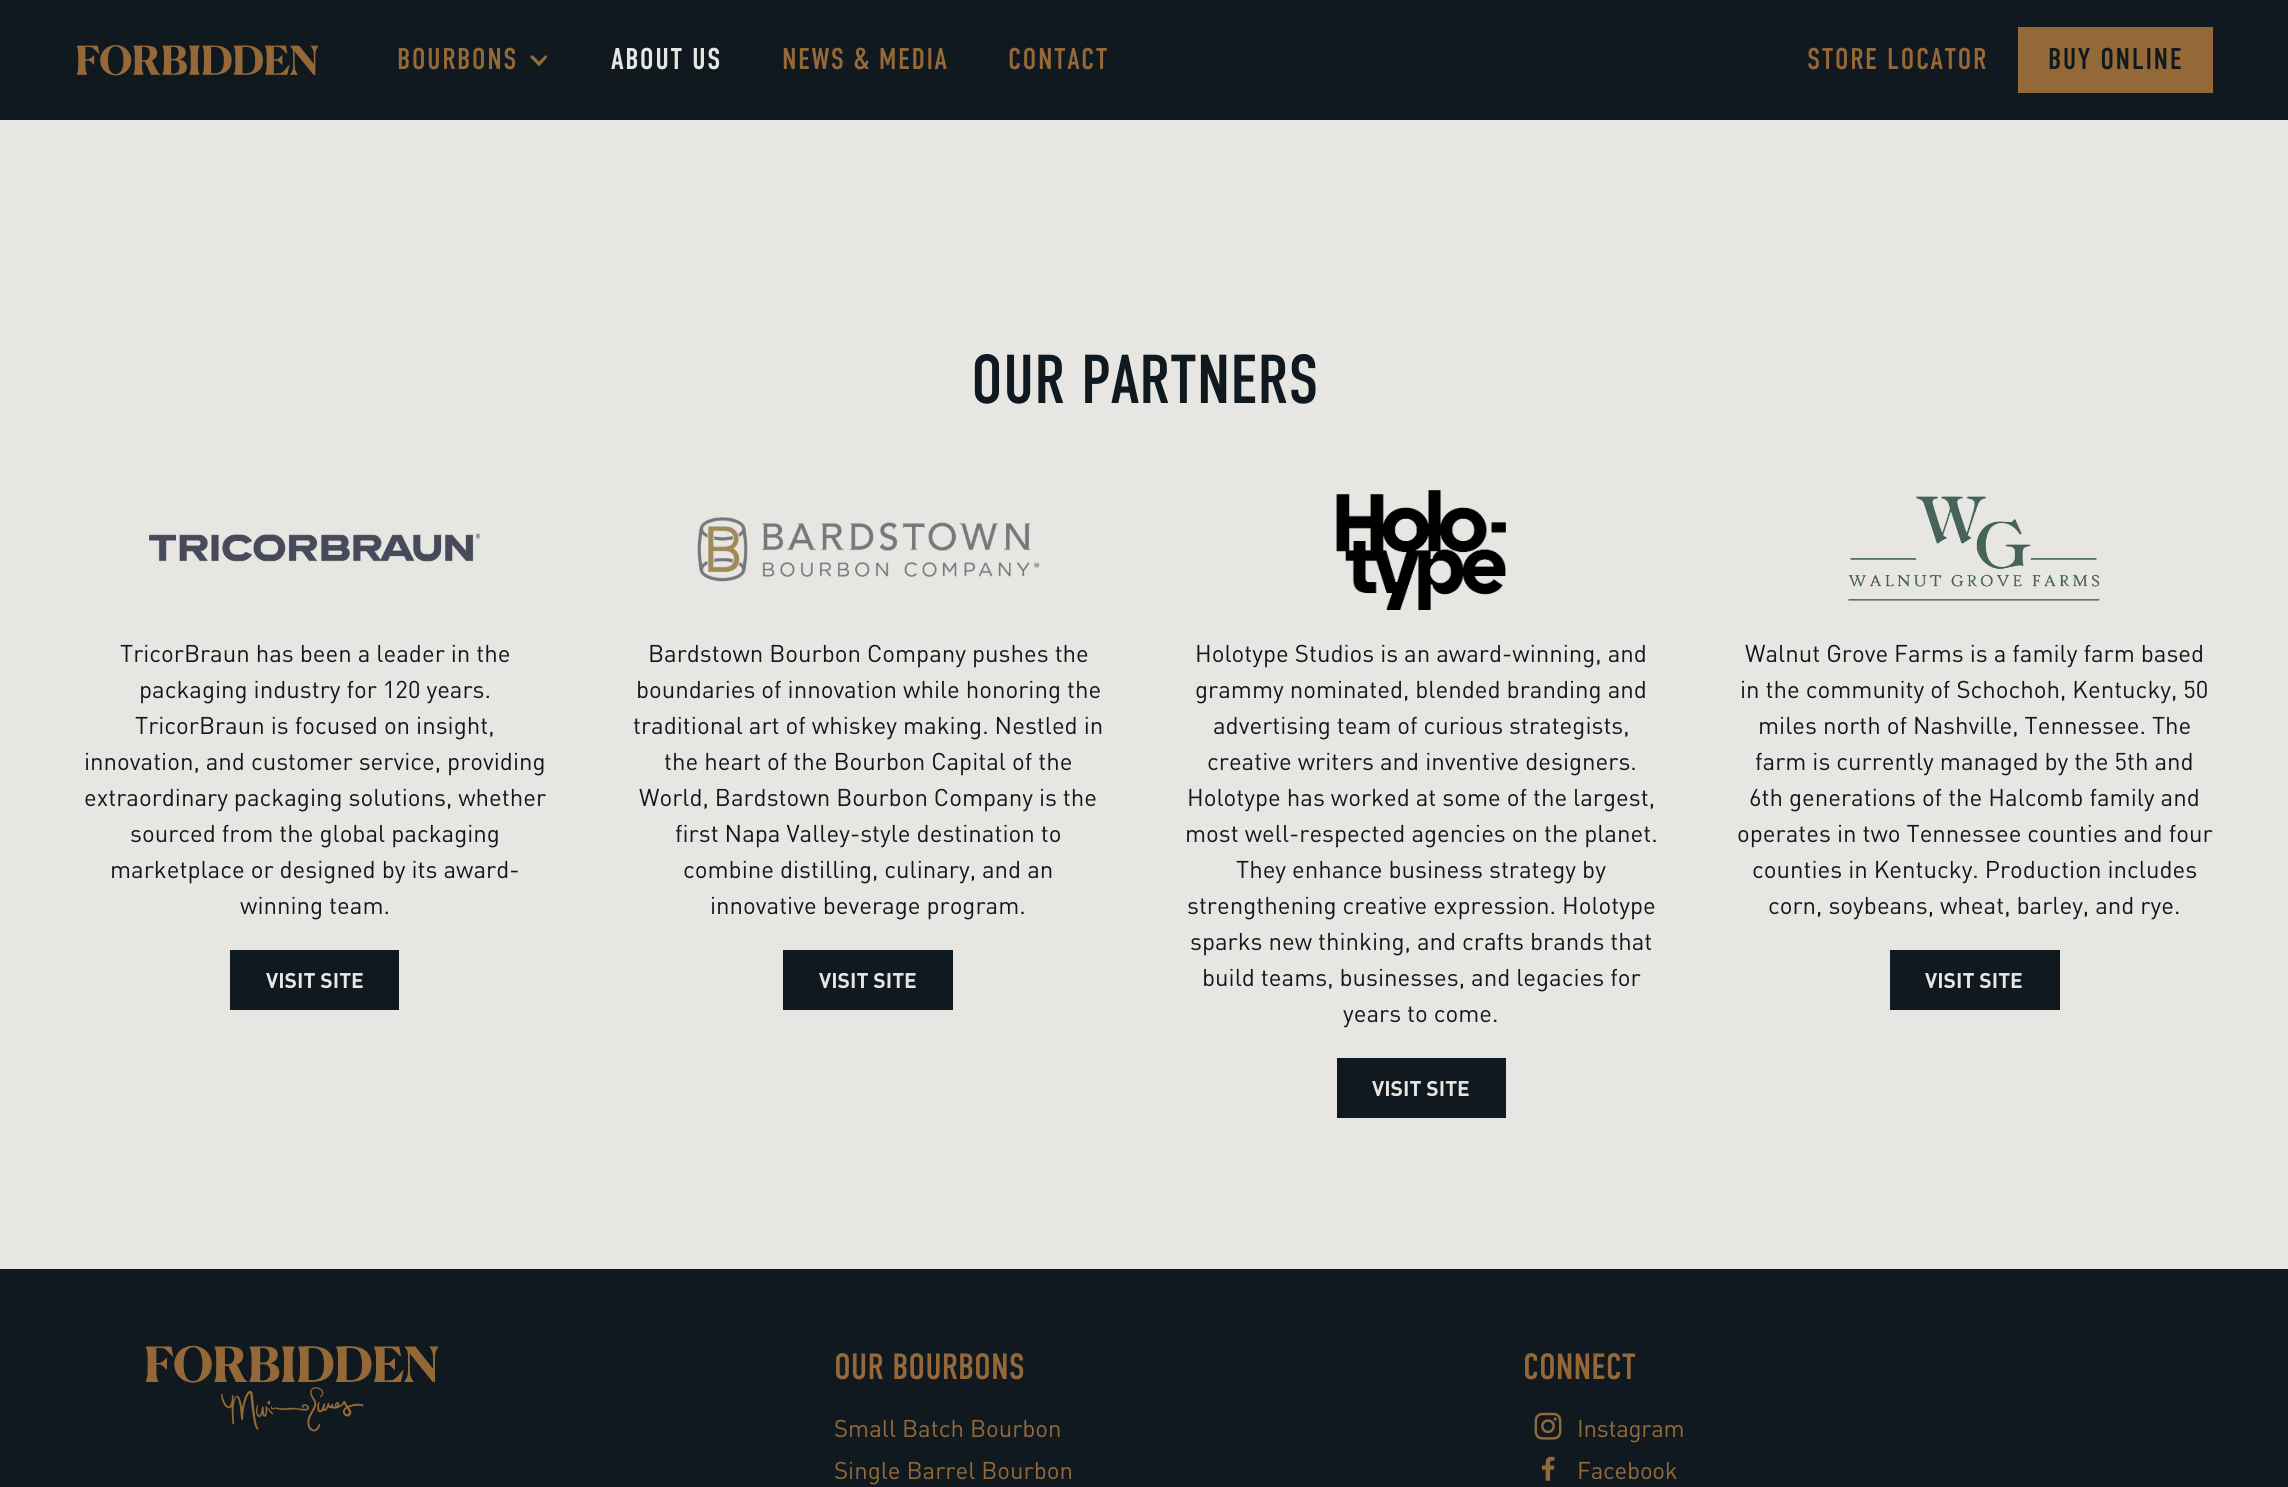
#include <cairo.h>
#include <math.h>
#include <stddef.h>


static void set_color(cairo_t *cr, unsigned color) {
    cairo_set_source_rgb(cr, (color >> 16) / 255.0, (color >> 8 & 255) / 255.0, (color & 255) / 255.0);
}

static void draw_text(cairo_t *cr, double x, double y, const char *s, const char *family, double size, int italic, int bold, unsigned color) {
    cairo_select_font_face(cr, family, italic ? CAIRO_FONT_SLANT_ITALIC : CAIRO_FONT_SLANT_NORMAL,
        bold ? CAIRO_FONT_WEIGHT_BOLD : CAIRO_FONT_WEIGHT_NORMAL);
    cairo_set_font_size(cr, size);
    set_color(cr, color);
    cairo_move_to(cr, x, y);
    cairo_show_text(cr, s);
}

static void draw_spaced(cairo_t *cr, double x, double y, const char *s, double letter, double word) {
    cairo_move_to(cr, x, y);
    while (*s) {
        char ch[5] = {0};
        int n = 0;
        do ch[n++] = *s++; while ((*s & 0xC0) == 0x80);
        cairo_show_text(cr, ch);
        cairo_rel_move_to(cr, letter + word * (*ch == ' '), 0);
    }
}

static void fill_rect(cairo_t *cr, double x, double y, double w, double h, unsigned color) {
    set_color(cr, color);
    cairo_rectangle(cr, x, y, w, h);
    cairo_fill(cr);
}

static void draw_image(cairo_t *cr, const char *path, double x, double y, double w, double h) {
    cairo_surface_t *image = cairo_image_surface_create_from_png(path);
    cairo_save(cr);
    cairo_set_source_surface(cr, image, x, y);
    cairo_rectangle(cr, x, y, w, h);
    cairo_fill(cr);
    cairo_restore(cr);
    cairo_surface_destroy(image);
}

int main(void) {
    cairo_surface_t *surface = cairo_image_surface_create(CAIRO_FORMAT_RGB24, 2288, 1487);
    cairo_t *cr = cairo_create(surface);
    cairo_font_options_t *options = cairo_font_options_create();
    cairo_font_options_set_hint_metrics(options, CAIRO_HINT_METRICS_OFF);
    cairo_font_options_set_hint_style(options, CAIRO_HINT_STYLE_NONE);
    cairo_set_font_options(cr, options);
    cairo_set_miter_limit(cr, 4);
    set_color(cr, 0x101820);
    cairo_paint(cr);
    draw_image(cr, "assets/img1.png", 77, 45, 242, 31);
    cairo_select_font_face(cr, "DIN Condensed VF", CAIRO_FONT_SLANT_NORMAL, CAIRO_FONT_WEIGHT_NORMAL);
    cairo_set_font_size(cr, 30);
    set_color(cr, 0x956937);
    draw_spaced(cr, 397, 69, "BOURBONS", 1.5, 0);
    cairo_new_path(cr);
    cairo_move_to(cr, 545.5, 55);
    cairo_line_to(cr, 539, 61.5);
    cairo_line_to(cr, 532.5, 55);
    cairo_line_to(cr, 530, 57);
    cairo_line_to(cr, 539, 66.5);
    cairo_line_to(cr, 547.5, 57);
    cairo_close_path(cr);
    cairo_fill(cr);
    cairo_select_font_face(cr, "DIN Condensed VF Medium", CAIRO_FONT_SLANT_NORMAL, CAIRO_FONT_WEIGHT_NORMAL);
    set_color(cr, 0xE8E6E2);
    draw_spaced(cr, 611, 69, "ABOUT US", 1.5, 0);
    cairo_select_font_face(cr, "DIN Condensed VF", CAIRO_FONT_SLANT_NORMAL, CAIRO_FONT_WEIGHT_NORMAL);
    set_color(cr, 0x956937);
    draw_spaced(cr, 782, 69, "NEWS & MEDIA", 1.5, 0);
    draw_spaced(cr, 1008, 69, "CONTACT", 1.5, 0);
    draw_spaced(cr, 1807, 69, "STORE LOCATOR", 1.5, 0);
    fill_rect(cr, 2018, 27, 195, 66, 0x956937);
    set_color(cr, 0x101820);
    draw_spaced(cr, 2048, 69, "BUY ONLINE", 1.5, 0);
    fill_rect(cr, 0, 120, 2288, 1149, 0xE8E6E2);
    draw_text(cr, 971, 403, "OUR PARTNERS", "DIN Condensed VF", 69, 0, 0, 0x101820);
    draw_image(cr, "assets/img2.png", 149, 533, 332, 30);
    draw_text(cr, 120, 662, "TricorBraun has been a leader in the", "DIN", 24, 0, 0, 0x101820);
    draw_text(cr, 139, 698, "packaging industry for 120 years.", "DIN", 24, 0, 0, 0x101820);
    draw_text(cr, 135, 734, "TricorBraun is focused on insight,", "DIN", 24, 0, 0, 0x101820);
    draw_text(cr, 84, 770, "innovation, and customer service, providing", "DIN", 24, 0, 0, 0x101820);
    draw_text(cr, 84, 806, "extraordinary packaging solutions, whether", "DIN", 24, 0, 0, 0x101820);
    draw_text(cr, 130, 842, "sourced from the global packaging", "DIN", 24, 0, 0, 0x101820);
    draw_text(cr, 110, 878, "marketplace or designed by its award-", "DIN", 24, 0, 0, 0x101820);
    draw_text(cr, 240, 914, "winning team.", "DIN", 24, 0, 0, 0x101820);
    fill_rect(cr, 230, 950, 169, 60, 0x101820);
    draw_text(cr, 266, 988, "VISIT SITE", "DIN", 21, 0, 1, 0xE8E6E2);
    draw_image(cr, "assets/img3.png", 697, 517, 343, 65);
    draw_text(cr, 648, 662, "Bardstown Bourbon Company pushes the", "DIN", 24, 0, 0, 0x101820);
    draw_text(cr, 636, 698, "boundaries of innovation while honoring the", "DIN", 24, 0, 0, 0x101820);
    draw_text(cr, 633, 734, "traditional art of whiskey making. Nestled in", "DIN", 24, 0, 0, 0x101820);
    draw_text(cr, 664, 770, "the heart of the Bourbon Capital of the", "DIN", 24, 0, 0, 0x101820);
    draw_text(cr, 639, 806, "World, Bardstown Bourbon Company is the", "DIN", 24, 0, 0, 0x101820);
    draw_text(cr, 675, 842, "first Napa Valley-style destination to", "DIN", 24, 0, 0, 0x101820);
    draw_text(cr, 683, 878, "combine distilling, culinary, and an", "DIN", 24, 0, 0, 0x101820);
    draw_text(cr, 710, 914, "innovative beverage program.", "DIN", 24, 0, 0, 0x101820);
    fill_rect(cr, 783, 950, 170, 60, 0x101820);
    draw_text(cr, 819, 988, "VISIT SITE", "DIN", 21, 0, 1, 0xE8E6E2);
    draw_image(cr, "assets/img4.png", 1336, 490, 170, 120);
    draw_text(cr, 1195, 662, "Holotype Studios is an award-winning, and", "DIN", 24, 0, 0, 0x101820);
    draw_text(cr, 1195, 698, "grammy nominated, blended branding and", "DIN", 24, 0, 0, 0x101820);
    draw_text(cr, 1213, 734, "advertising team of curious strategists,", "DIN", 24, 0, 0, 0x101820);
    draw_text(cr, 1207, 770, "creative writers and inventive designers.", "DIN", 24, 0, 0, 0x101820);
    draw_text(cr, 1187, 806, "Holotype has worked at some of the largest,", "DIN", 24, 0, 0, 0x101820);
    draw_text(cr, 1185, 842, "most well-respected agencies on the planet.", "DIN", 24, 0, 0, 0x101820);
    draw_text(cr, 1236, 878, "They enhance business strategy by", "DIN", 24, 0, 0, 0x101820);
    draw_text(cr, 1187, 914, "strengthening creative expression. Holotype", "DIN", 24, 0, 0, 0x101820);
    draw_text(cr, 1190, 950, "sparks new thinking, and crafts brands that", "DIN", 24, 0, 0, 0x101820);
    draw_text(cr, 1202, 986, "build teams, businesses, and legacies for", "DIN", 24, 0, 0, 0x101820);
    draw_text(cr, 1343, 1022, "years to come.", "DIN", 24, 0, 0, 0x101820);
    fill_rect(cr, 1337, 1058, 169, 60, 0x101820);
    draw_text(cr, 1372, 1096, "VISIT SITE", "DIN", 21, 0, 1, 0xE8E6E2);
    draw_image(cr, "assets/img5.png", 1848, 496, 252, 105);
    draw_text(cr, 1745, 662, "Walnut Grove Farms is a family farm based", "DIN", 24, 0, 0, 0x101820);
    draw_text(cr, 1740, 698, "in the community of Schochoh, Kentucky, 50", "DIN", 24, 0, 0, 0x101820);
    draw_text(cr, 1758, 734, "miles north of Nashville, Tennessee. The", "DIN", 24, 0, 0, 0x101820);
    draw_text(cr, 1755, 770, "farm is currently managed by the 5th and", "DIN", 24, 0, 0, 0x101820);
    draw_text(cr, 1749, 806, "6th generations of the Halcomb family and", "DIN", 24, 0, 0, 0x101820);
    draw_text(cr, 1737, 842, "operates in two Tennessee counties and four", "DIN", 24, 0, 0, 0x101820);
    draw_text(cr, 1752, 878, "counties in Kentucky. Production includes", "DIN", 24, 0, 0, 0x101820);
    draw_text(cr, 1768, 914, "corn, soybeans, wheat, barley, and rye.", "DIN", 24, 0, 0, 0x101820);
    fill_rect(cr, 1890, 950, 170, 60, 0x101820);
    draw_text(cr, 1925, 988, "VISIT SITE", "DIN", 21, 0, 1, 0xE8E6E2);
    draw_image(cr, "assets/img6.png", 146, 1345, 293, 87);
    draw_text(cr, 834, 1379, "OUR BOURBONS", "DIN Condensed VF", 36.5, 0, 0, 0x956937);
    draw_text(cr, 834, 1437, "Small Batch Bourbon", "DIN", 24, 0, 0, 0x956937);
    draw_text(cr, 834, 1479, "Single Barrel Bourbon", "DIN", 24, 0, 0, 0x956937);
    draw_text(cr, 1523, 1379, "CONNECT", "DIN Condensed VF", 36.5, 0, 0, 0x956937);
    draw_image(cr, "assets/img7.png", 1534, 1412, 28, 28);
    cairo_select_font_face(cr, "DIN", CAIRO_FONT_SLANT_NORMAL, CAIRO_FONT_WEIGHT_NORMAL);
    cairo_set_font_size(cr, 24);
    draw_spaced(cr, 1577, 1437, "Instagram", -0.25, 0);
    draw_image(cr, "assets/img8.png", 1542, 1456, 13, 25);
    draw_spaced(cr, 1577, 1479, "Facebook", -0.25, 0);
    cairo_surface_write_to_png(surface, "output.png");
    cairo_font_options_destroy(options);
    cairo_destroy(cr);
    cairo_surface_destroy(surface);
    return 0;
}
